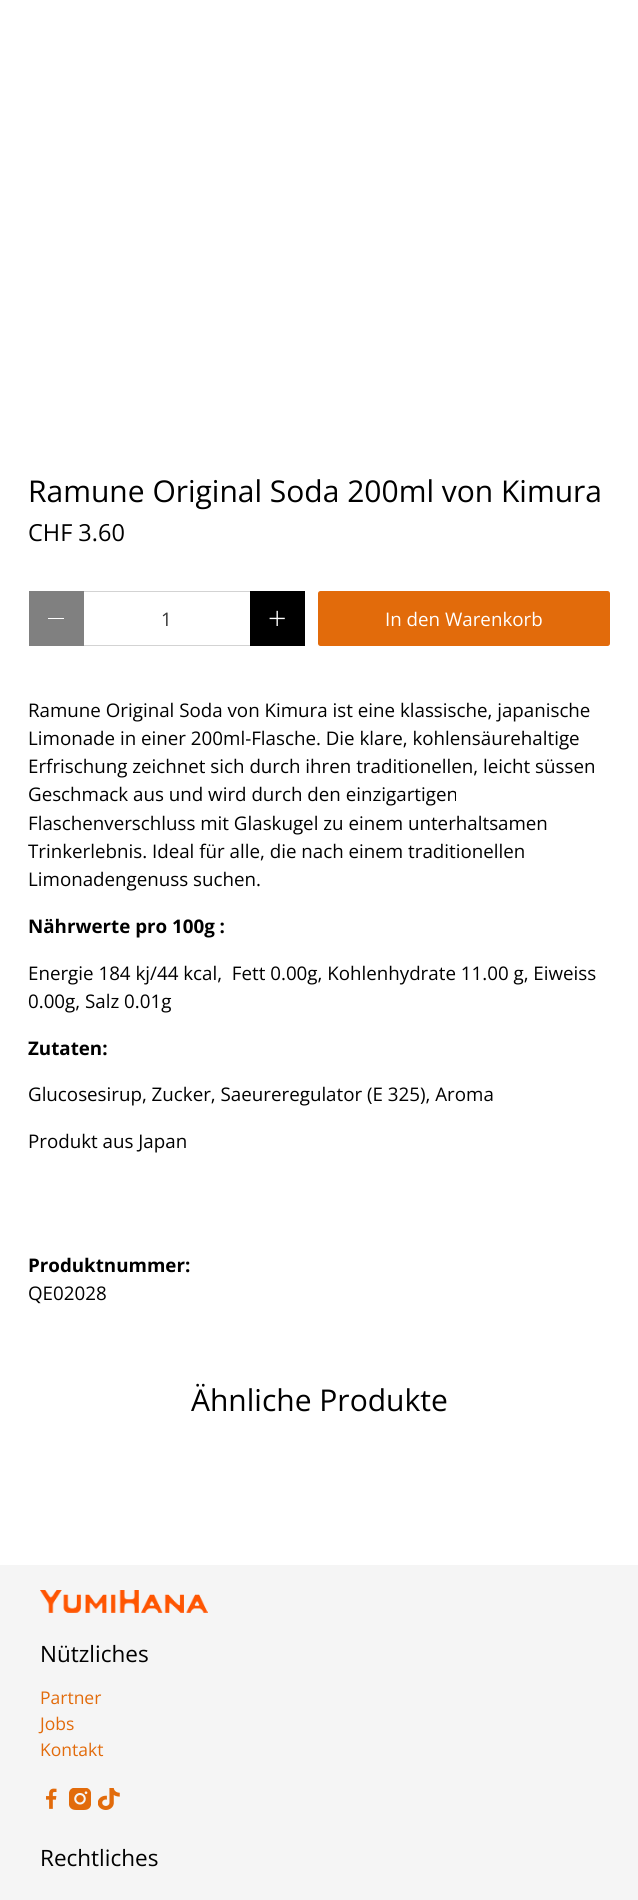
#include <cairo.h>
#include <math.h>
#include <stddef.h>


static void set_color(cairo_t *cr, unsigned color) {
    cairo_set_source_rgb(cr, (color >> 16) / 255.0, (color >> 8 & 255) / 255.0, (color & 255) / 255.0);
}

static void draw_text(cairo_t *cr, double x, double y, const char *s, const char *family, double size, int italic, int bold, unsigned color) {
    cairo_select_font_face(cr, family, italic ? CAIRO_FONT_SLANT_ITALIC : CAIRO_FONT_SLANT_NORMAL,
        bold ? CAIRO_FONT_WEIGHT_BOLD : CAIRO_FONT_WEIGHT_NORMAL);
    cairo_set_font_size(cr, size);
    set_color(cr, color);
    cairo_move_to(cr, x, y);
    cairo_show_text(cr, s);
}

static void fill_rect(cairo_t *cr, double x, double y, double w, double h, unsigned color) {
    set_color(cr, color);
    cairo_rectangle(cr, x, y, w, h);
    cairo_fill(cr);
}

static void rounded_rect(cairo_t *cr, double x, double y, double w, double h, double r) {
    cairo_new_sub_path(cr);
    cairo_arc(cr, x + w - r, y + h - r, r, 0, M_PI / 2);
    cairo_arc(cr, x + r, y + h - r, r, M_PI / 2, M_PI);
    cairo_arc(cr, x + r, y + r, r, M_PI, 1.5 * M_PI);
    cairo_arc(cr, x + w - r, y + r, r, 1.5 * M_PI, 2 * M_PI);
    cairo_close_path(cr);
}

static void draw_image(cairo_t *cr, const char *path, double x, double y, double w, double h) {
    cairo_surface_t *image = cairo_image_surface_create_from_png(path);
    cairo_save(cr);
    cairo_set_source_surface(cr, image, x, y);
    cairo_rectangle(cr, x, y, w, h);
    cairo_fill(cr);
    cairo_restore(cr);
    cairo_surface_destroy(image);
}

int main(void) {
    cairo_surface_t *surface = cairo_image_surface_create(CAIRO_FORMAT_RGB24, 638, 1900);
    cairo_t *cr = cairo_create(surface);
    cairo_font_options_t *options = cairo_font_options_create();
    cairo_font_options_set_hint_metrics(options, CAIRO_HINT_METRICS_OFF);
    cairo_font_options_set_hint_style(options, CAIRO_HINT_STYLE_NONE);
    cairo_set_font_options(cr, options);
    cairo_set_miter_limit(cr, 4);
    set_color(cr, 0xFFFFFF);
    cairo_paint(cr);
    draw_text(cr, 28, 502, "Ramune Original Soda 200ml von Kimura", "Open Sans", 30, 0, 0, 0x000000);
    draw_text(cr, 28, 541, "CHF 3.60", "Open Sans", 23.5, 0, 0, 0x000000);
    fill_rect(cr, 29, 591, 55, 55, 0x808080);
    fill_rect(cr, 48, 618, 16, 1, 0xFFFFFF);
    fill_rect(cr, 84, 591, 166, 1, 0xD3D3D3);
    fill_rect(cr, 84, 645, 166, 1, 0xD3D3D3);
    draw_text(cr, 161, 626, "1", "Open Sans", 18.75, 0, 0, 0x363636);
    fill_rect(cr, 250, 591, 55, 55, 0x000000);
    draw_image(cr, "assets/img1.png", 269, 610, 16, 16);
    set_color(cr, 0xE26B0B);
    rounded_rect(cr, 318, 591, 292, 55, 2.5);
    cairo_fill(cr);
    draw_text(cr, 385, 626, "In den Warenkorb", "Open Sans", 18.75, 0, 0, 0xFFFFFF);
    draw_text(cr, 28, 717, "Ramune Original Soda von Kimura ist eine klassische, japanische", "Open Sans", 18.75, 0, 0, 0x000000);
    draw_text(cr, 28, 745, "Limonade in einer 200ml-Flasche. Die klare, kohlensäurehaltige", "Open Sans", 18.75, 0, 0, 0x000000);
    draw_text(cr, 28, 773, "Erfrischung zeichnet sich durch ihren traditionellen, leicht süssen", "Open Sans", 18.75, 0, 0, 0x000000);
    draw_text(cr, 28, 801, "Geschmack aus und wird durch den einzigartigen", "Open Sans", 18.75, 0, 0, 0x000000);
    draw_text(cr, 28, 830, "Flaschenverschluss mit Glaskugel zu einem unterhaltsamen", "Open Sans", 18.75, 0, 0, 0x000000);
    draw_text(cr, 28, 858, "Trinkerlebnis. Ideal für alle, die nach einem traditionellen", "Open Sans", 18.75, 0, 0, 0x000000);
    draw_text(cr, 28, 886, "Limonadengenuss suchen.", "Open Sans", 18.75, 0, 0, 0x000000);
    draw_text(cr, 28, 933, "Nährwerte pro 100g :", "Open Sans", 18.75, 0, 1, 0x000000);
    draw_text(cr, 28, 980, "Energie 184 kj/44 kcal,  Fett 0.00g, Kohlenhydrate 11.00 g, Eiweiss", "Open Sans", 18.75, 0, 0, 0x000000);
    draw_text(cr, 28, 1008, "0.00g, Salz 0.01g", "Open Sans", 18.75, 0, 0, 0x000000);
    draw_text(cr, 28, 1055, "Zutaten:", "Open Sans", 18.75, 0, 1, 0x000000);
    draw_text(cr, 28, 1101, "Glucosesirup, Zucker, Saeureregulator (E 325), Aroma", "Open Sans", 18.75, 0, 0, 0x000000);
    draw_text(cr, 28, 1148, "Produkt aus Japan", "Open Sans", 18.75, 0, 0, 0x000000);
    draw_text(cr, 28, 1272, "Produktnummer:", "Open Sans", 18.75, 0, 1, 0x000000);
    draw_text(cr, 28, 1300, "QE02028", "Open Sans", 18.75, 0, 0, 0x000000);
    draw_text(cr, 191, 1411, "Ähnliche Produkte", "Open Sans", 30, 0, 0, 0x000000);
    fill_rect(cr, 0, 1565, 638, 335, 0xF5F5F5);
    draw_image(cr, "assets/img2.png", 40, 1590, 168, 23);
    draw_text(cr, 40, 1662, "Nützliches", "Open Sans", 22.5, 0, 0, 0x000000);
    draw_text(cr, 40, 1704, "Partner", "Open Sans", 17.5, 0, 0, 0xE26B0B);
    draw_text(cr, 40, 1730, "Jobs", "Open Sans", 17.5, 0, 0, 0xE26B0B);
    draw_text(cr, 40, 1756, "Kontakt", "Open Sans", 17.5, 0, 0, 0xE26B0B);
    draw_image(cr, "assets/img3.png", 46, 1788, 11, 21);
    draw_image(cr, "assets/img4.png", 69, 1788, 22, 22);
    draw_image(cr, "assets/img5.png", 98, 1788, 22, 22);
    draw_text(cr, 40, 1866, "Rechtliches", "Open Sans", 22.5, 0, 0, 0x000000);
    cairo_surface_write_to_png(surface, "output.png");
    cairo_font_options_destroy(options);
    cairo_destroy(cr);
    cairo_surface_destroy(surface);
    return 0;
}
